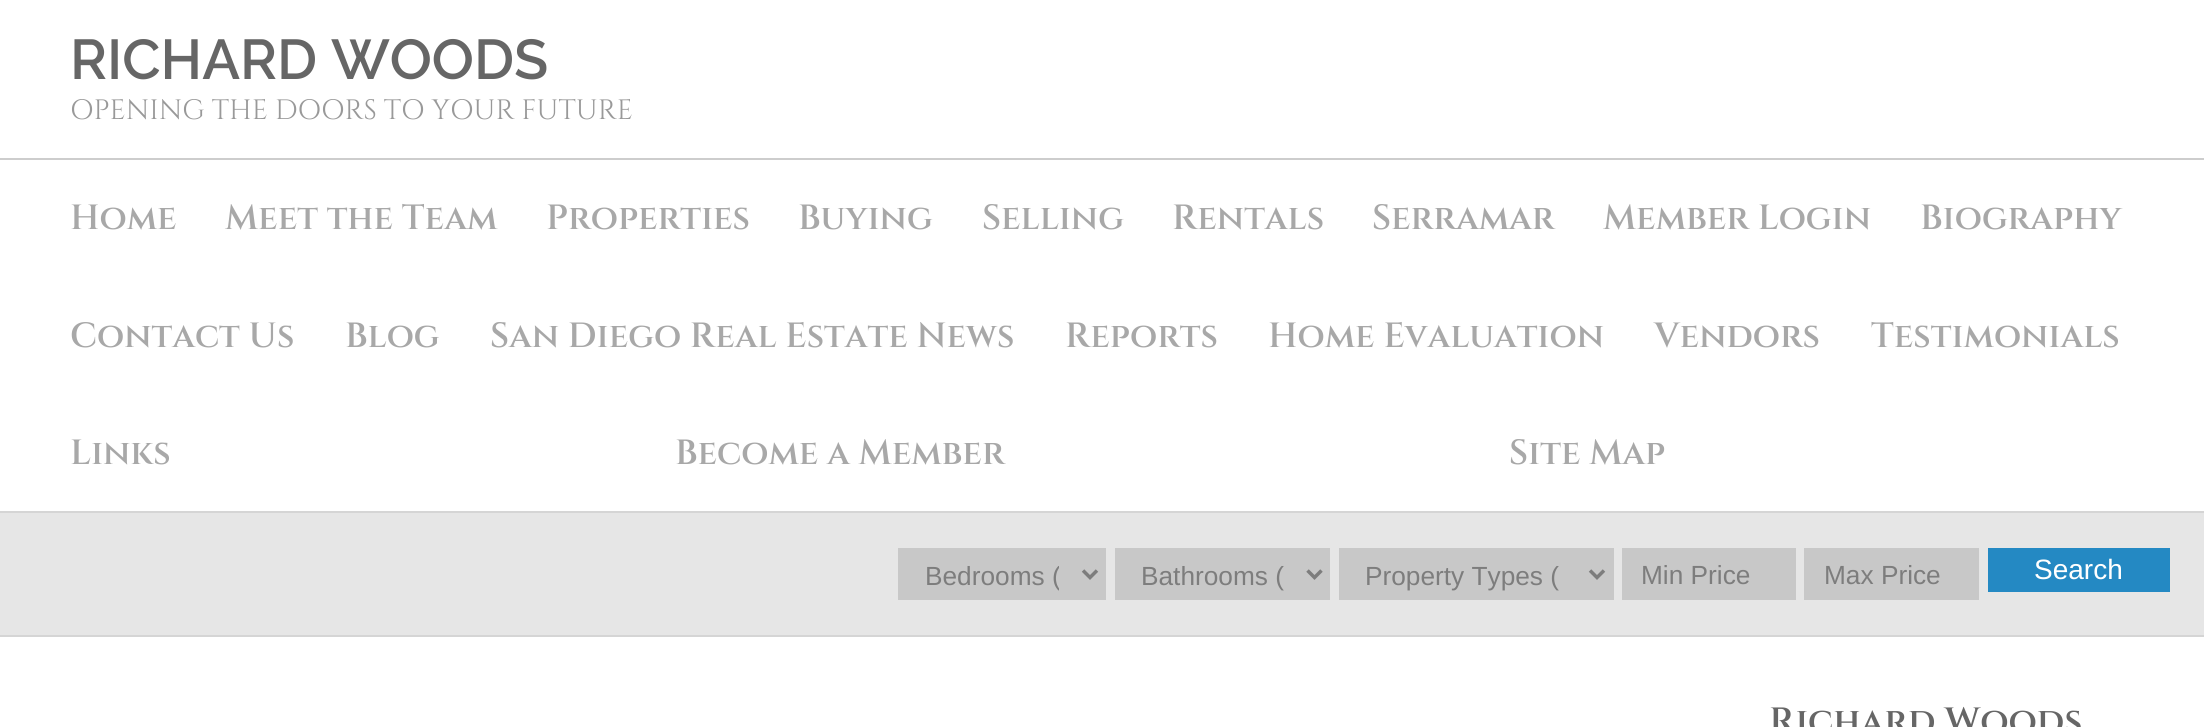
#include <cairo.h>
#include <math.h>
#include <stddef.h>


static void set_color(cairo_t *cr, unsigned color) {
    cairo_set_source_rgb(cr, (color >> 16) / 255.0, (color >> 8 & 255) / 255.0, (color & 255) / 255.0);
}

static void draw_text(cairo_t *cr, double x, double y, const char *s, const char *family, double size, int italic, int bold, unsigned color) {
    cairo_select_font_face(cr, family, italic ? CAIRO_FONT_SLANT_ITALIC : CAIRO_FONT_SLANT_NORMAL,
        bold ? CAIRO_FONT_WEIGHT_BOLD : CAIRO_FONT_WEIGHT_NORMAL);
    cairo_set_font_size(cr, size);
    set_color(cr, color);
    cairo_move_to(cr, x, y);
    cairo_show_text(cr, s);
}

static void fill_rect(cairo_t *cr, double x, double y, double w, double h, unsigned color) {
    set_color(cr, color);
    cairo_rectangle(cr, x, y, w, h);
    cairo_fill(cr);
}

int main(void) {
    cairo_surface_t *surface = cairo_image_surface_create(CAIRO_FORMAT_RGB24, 2204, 727);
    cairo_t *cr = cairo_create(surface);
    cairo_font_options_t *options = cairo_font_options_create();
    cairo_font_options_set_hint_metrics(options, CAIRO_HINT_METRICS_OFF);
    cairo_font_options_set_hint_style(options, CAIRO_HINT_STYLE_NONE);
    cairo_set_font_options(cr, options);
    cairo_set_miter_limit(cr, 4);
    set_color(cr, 0xFFFFFF);
    cairo_paint(cr);
    draw_text(cr, 70, 79, "RICHARD WOODS", "Raleway SemiBold", 56, 0, 0, 0x666666);
    draw_text(cr, 70, 119, "OPENING THE DOORS TO YOUR FUTURE", "Cinzel", 28, 0, 0, 0x999999);
    fill_rect(cr, 0, 158, 2204, 2, 0xCDCDCD);
    draw_text(cr, 70, 229, "Home", "Cinzel SemiBold", 35, 0, 0, 0xA8A8A8);
    draw_text(cr, 225, 229, "Meet the Team", "Cinzel SemiBold", 35, 0, 0, 0xA8A8A8);
    draw_text(cr, 546, 229, "Properties", "Cinzel SemiBold", 35, 0, 0, 0xA8A8A8);
    draw_text(cr, 798, 229, "Buying", "Cinzel SemiBold", 35, 0, 0, 0xA8A8A8);
    draw_text(cr, 982, 229, "Selling", "Cinzel SemiBold", 35, 0, 0, 0xA8A8A8);
    draw_text(cr, 1172, 229, "Rentals", "Cinzel SemiBold", 35, 0, 0, 0xA8A8A8);
    draw_text(cr, 1372, 229, "Serramar", "Cinzel SemiBold", 35, 0, 0, 0xA8A8A8);
    draw_text(cr, 1603, 229, "Member Login", "Cinzel SemiBold", 35, 0, 0, 0xA8A8A8);
    draw_text(cr, 1920, 229, "Biography", "Cinzel SemiBold", 35, 0, 0, 0xA8A8A8);
    draw_text(cr, 70, 347, "Contact Us", "Cinzel SemiBold", 35, 0, 0, 0xA8A8A8);
    draw_text(cr, 345, 347, "Blog", "Cinzel SemiBold", 35, 0, 0, 0xA8A8A8);
    draw_text(cr, 490, 347, "San Diego Real Estate News", "Cinzel SemiBold", 35, 0, 0, 0xA8A8A8);
    draw_text(cr, 1065, 347, "Reports", "Cinzel SemiBold", 35, 0, 0, 0xA8A8A8);
    draw_text(cr, 1268, 347, "Home Evaluation", "Cinzel SemiBold", 35, 0, 0, 0xA8A8A8);
    draw_text(cr, 1654, 347, "Vendors", "Cinzel SemiBold", 35, 0, 0, 0xA8A8A8);
    draw_text(cr, 1871, 347, "Testimonials", "Cinzel SemiBold", 35, 0, 0, 0xA8A8A8);
    draw_text(cr, 70, 464, "Links", "Cinzel SemiBold", 35, 0, 0, 0xA8A8A8);
    draw_text(cr, 675, 464, "Become a Member", "Cinzel SemiBold", 35, 0, 0, 0xA8A8A8);
    draw_text(cr, 1509, 464, "Site Map", "Cinzel SemiBold", 35, 0, 0, 0xA8A8A8);
    fill_rect(cr, 0, 513, 2204, 122, 0xE6E6E6);
    fill_rect(cr, 0, 511, 2204, 2, 0xD5D5D5);
    fill_rect(cr, 0, 635, 2204, 2, 0xD5D5D5);
    fill_rect(cr, 898, 548, 208, 52, 0xC8C8C8);
    cairo_new_path(cr);
    cairo_move_to(cr, 1083, 570.5);
    cairo_line_to(cr, 1090, 577.5);
    cairo_line_to(cr, 1097, 570.5);
    set_color(cr, 0x7D7D7D);
    cairo_set_line_width(cr, 3.5);
    cairo_stroke(cr);
    cairo_save(cr);
    cairo_rectangle(cr, 924, 558, 135, 34);
    cairo_clip(cr);
    draw_text(cr, 925, 585, "Bedrooms (", "Liberation Sans", 26.25, 0, 0, 0x7D7D7D);
    cairo_restore(cr);
    fill_rect(cr, 1115, 548, 215, 52, 0xC8C8C8);
    cairo_new_path(cr);
    cairo_move_to(cr, 1307.5, 570.5);
    cairo_line_to(cr, 1314.5, 577.5);
    cairo_line_to(cr, 1321.5, 570.5);
    set_color(cr, 0x7D7D7D);
    cairo_stroke(cr);
    draw_text(cr, 1141, 585, "Bathrooms (", "Liberation Sans", 26.25, 0, 0, 0x7D7D7D);
    fill_rect(cr, 1339, 548, 275, 52, 0xC8C8C8);
    cairo_new_path(cr);
    cairo_move_to(cr, 1590, 570.5);
    cairo_line_to(cr, 1597, 577.5);
    cairo_line_to(cr, 1604, 570.5);
    set_color(cr, 0x7D7D7D);
    cairo_stroke(cr);
    draw_text(cr, 1365, 585, "Property Types (", "Liberation Sans", 26.25, 0, 0, 0x7D7D7D);
    fill_rect(cr, 1622, 548, 174, 52, 0xC8C8C8);
    draw_text(cr, 1641, 584, "Min Price", "Liberation Sans", 26.25, 0, 0, 0x7D7D7D);
    fill_rect(cr, 1804, 548, 175, 52, 0xC8C8C8);
    draw_text(cr, 1824, 584, "Max Price", "Liberation Sans", 26.25, 0, 0, 0x7D7D7D);
    fill_rect(cr, 1988, 548, 182, 44, 0x2489C3);
    draw_text(cr, 2034, 579, "Search", "Liberation Sans", 28, 0, 0, 0xFFFFFF);
    draw_text(cr, 1769, 733, "Richard Woods", "Cinzel SemiBold", 36.5, 0, 0, 0x666666);
    cairo_surface_write_to_png(surface, "output.png");
    cairo_font_options_destroy(options);
    cairo_destroy(cr);
    cairo_surface_destroy(surface);
    return 0;
}
